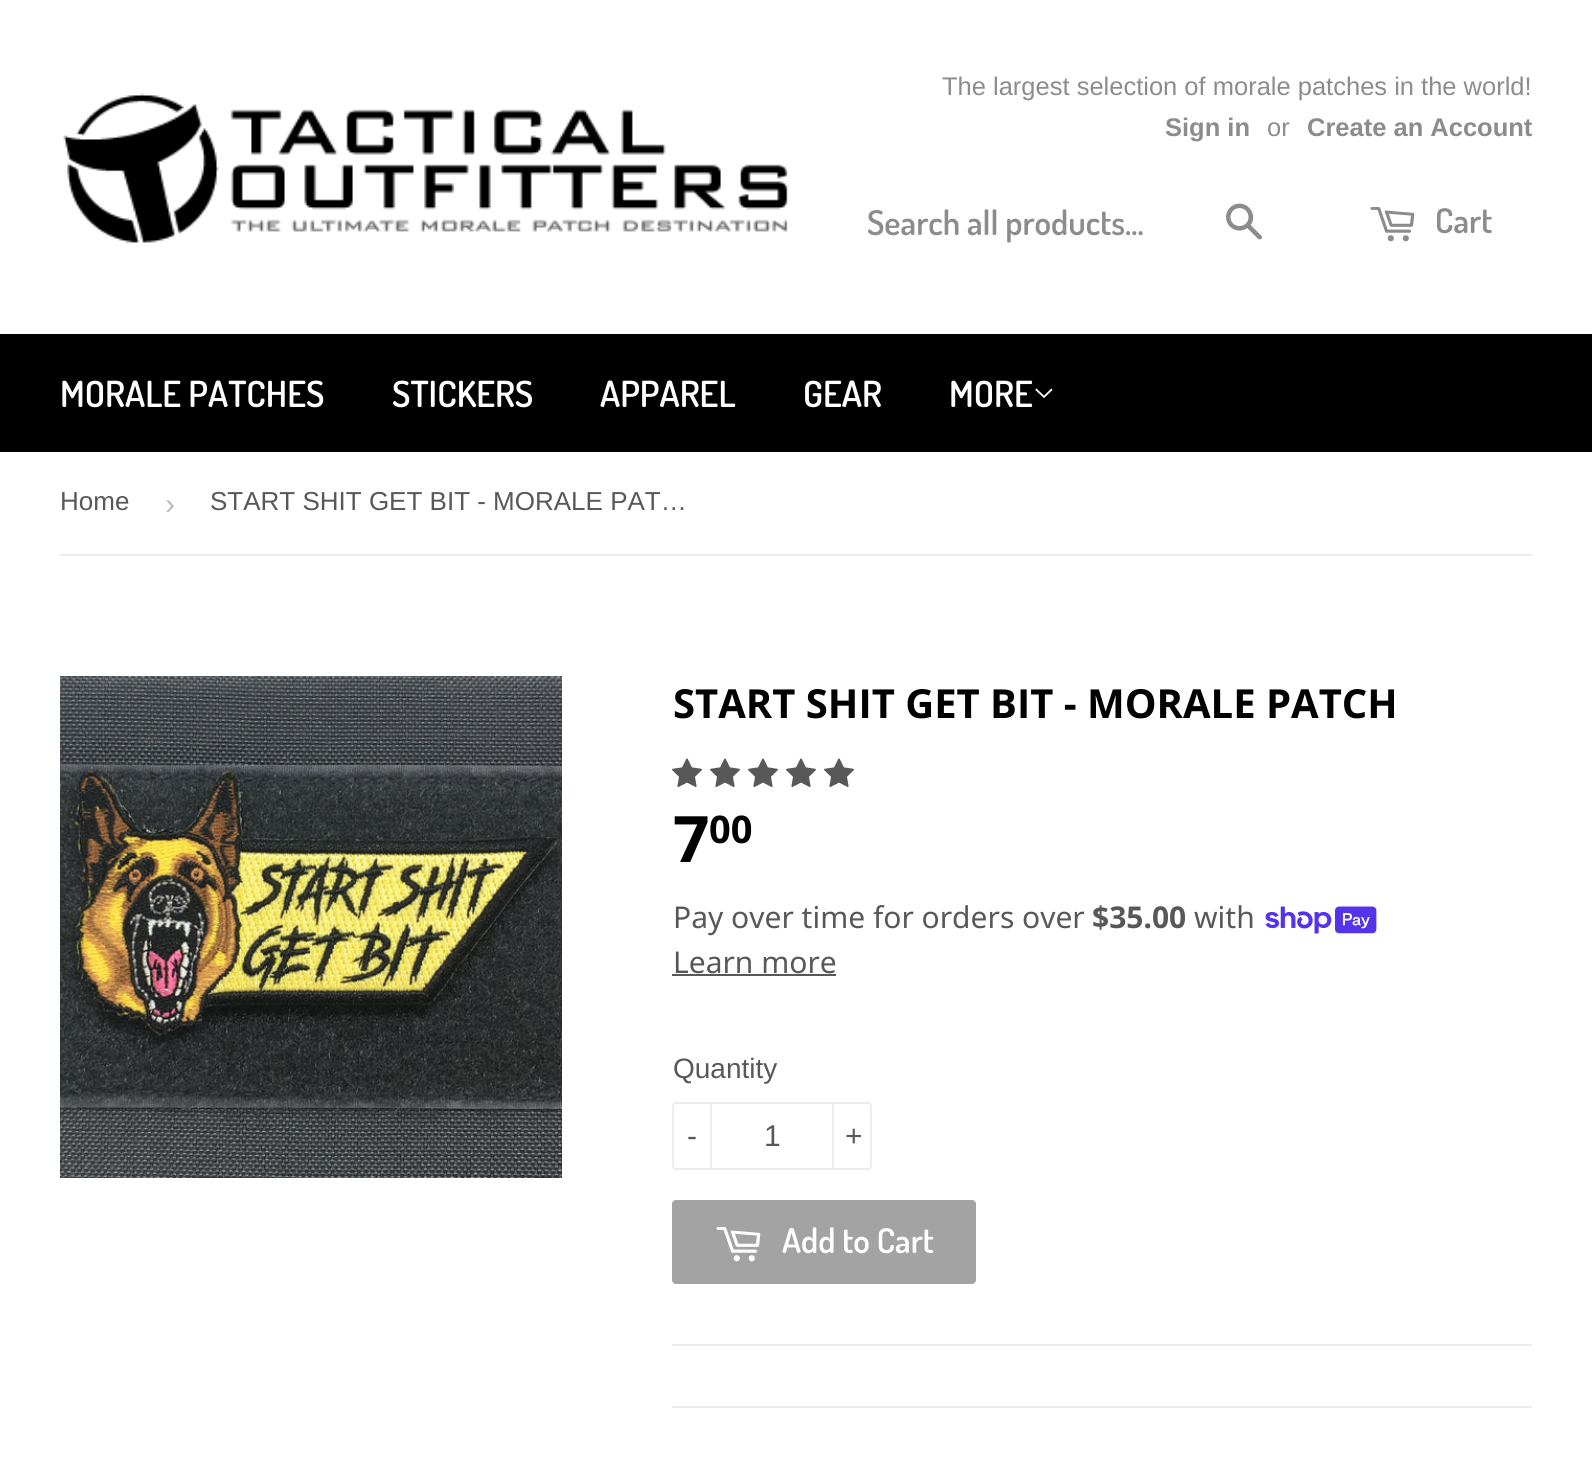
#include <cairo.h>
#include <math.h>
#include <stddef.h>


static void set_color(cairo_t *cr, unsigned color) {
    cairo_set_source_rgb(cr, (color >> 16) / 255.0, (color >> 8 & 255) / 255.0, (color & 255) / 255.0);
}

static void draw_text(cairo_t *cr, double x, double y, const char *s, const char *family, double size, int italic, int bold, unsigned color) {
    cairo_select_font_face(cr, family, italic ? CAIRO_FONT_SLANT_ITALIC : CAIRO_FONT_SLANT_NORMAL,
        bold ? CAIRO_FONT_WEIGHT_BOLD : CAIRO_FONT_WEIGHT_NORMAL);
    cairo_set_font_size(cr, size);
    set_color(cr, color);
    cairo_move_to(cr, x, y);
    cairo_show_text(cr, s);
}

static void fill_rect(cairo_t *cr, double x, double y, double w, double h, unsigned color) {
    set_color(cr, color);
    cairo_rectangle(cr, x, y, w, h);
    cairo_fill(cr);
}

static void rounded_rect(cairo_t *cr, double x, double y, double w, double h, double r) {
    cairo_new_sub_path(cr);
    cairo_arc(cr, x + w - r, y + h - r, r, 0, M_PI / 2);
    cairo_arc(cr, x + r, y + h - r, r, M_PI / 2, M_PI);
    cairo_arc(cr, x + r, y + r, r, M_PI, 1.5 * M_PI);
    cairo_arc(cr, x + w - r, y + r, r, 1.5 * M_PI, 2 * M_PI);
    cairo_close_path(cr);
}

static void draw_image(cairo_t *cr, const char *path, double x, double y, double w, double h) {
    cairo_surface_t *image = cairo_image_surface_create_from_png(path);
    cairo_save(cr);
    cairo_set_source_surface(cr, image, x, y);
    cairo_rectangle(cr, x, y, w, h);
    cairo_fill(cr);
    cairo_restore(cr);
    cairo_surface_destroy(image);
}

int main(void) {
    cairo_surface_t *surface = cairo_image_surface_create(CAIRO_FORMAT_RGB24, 1592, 1459);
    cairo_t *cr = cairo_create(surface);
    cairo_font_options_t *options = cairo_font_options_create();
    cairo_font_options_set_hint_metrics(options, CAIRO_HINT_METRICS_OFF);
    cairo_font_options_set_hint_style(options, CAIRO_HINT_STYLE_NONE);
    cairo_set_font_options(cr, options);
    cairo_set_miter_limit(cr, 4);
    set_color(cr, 0xFFFFFF);
    cairo_paint(cr);
    draw_image(cr, "assets/img1.png", 63, 93, 725, 150);
    draw_text(cr, 942, 95, "The largest selection of morale patches in the world!", "Liberation Sans", 25.5, 0, 0, 0x8C8C8C);
    draw_text(cr, 1165, 136, "Sign in", "Liberation Sans", 25.5, 0, 1, 0x8C8C8C);
    draw_text(cr, 1267, 136, "or", "Liberation Sans", 25.5, 0, 0, 0x8C8C8C);
    draw_text(cr, 1307, 136, "Create an Account", "Liberation Sans", 25.5, 0, 1, 0x8C8C8C);
    draw_text(cr, 867, 235, "Search all products...", "Dosis SemiBold", 34, 0, 0, 0x8C8C8C);
    draw_image(cr, "assets/img2.png", 1226, 203, 36, 37);
    draw_image(cr, "assets/img3.png", 1370, 207, 45, 35);
    draw_text(cr, 1435, 233, "Cart", "Dosis SemiBold", 34, 0, 0, 0x8C8C8C);
    fill_rect(cr, 0, 334, 1592, 118, 0x000000);
    draw_text(cr, 60, 407, "MORALE PATCHES", "Dosis SemiBold", 36, 0, 0, 0xFFFFFF);
    draw_text(cr, 392, 407, "STICKERS", "Dosis SemiBold", 36, 0, 0, 0xFFFFFF);
    draw_text(cr, 600, 407, "APPAREL", "Dosis SemiBold", 36, 0, 0, 0xFFFFFF);
    draw_text(cr, 803, 407, "GEAR", "Dosis SemiBold", 36, 0, 0, 0xFFFFFF);
    draw_text(cr, 949, 407, "MORE", "Dosis SemiBold", 36, 0, 0, 0xFFFFFF);
    draw_image(cr, "assets/img4.png", 1035, 388, 18, 10);
    fill_rect(cr, 60, 554, 1472, 2, 0xECECEC);
    draw_text(cr, 60, 510, "Home", "Liberation Sans", 26, 0, 0, 0x585858);
    draw_text(cr, 165, 514, "›", "Liberation Sans", 30, 0, 0, 0xBBBBBB);
    draw_text(cr, 210, 510, "START SHIT GET BIT - MORALE PAT…", "Liberation Sans", 26, 0, 0, 0x585858);
    draw_image(cr, "assets/img5.png", 60, 676, 502, 502);
    draw_text(cr, 673, 718, "START SHIT GET BIT - MORALE PATCH", "Open Sans", 40, 0, 1, 0x000000);
    draw_image(cr, "assets/img6.png", 672, 758, 30, 29);
    draw_image(cr, "assets/img6.png", 710, 758, 30, 29);
    draw_image(cr, "assets/img6.png", 748, 758, 30, 29);
    draw_image(cr, "assets/img6.png", 786, 758, 30, 29);
    draw_image(cr, "assets/img6.png", 824, 758, 30, 29);
    draw_text(cr, 673, 862, "7", "Open Sans", 64, 0, 1, 0x000000);
    draw_text(cr, 709, 843, "00", "Open Sans", 38, 0, 1, 0x000000);
    draw_text(cr, 673, 928, "Pay over time for orders over", "Noto Sans", 30, 0, 0, 0x585858);
    draw_text(cr, 1092, 928, "$35.00", "Noto Sans", 30, 0, 1, 0x585858);
    draw_text(cr, 1194, 928, "with", "Noto Sans", 30, 0, 0, 0x585858);
    draw_image(cr, "assets/img7.png", 1265, 906, 112, 28);
    draw_text(cr, 673, 973, "Learn more", "Noto Sans", 30, 0, 0, 0x585858);
    fill_rect(cr, 672, 974, 164, 2, 0x585858);
    draw_text(cr, 673, 1078, "Quantity", "Liberation Sans", 28, 0, 0, 0x585858);
    rounded_rect(cr, 673, 1103, 198, 66, 3);
    set_color(cr, 0xECECEC);
    cairo_stroke(cr);
    fill_rect(cr, 710, 1102, 2, 68, 0xECECEC);
    draw_text(cr, 687, 1146, "-", "Liberation Sans", 30, 0, 0, 0x585858);
    draw_text(cr, 764, 1146, "1", "Liberation Sans", 30, 0, 0, 0x585858);
    fill_rect(cr, 832, 1102, 2, 68, 0xECECEC);
    draw_text(cr, 845, 1146, "+", "Liberation Sans", 30, 0, 0, 0x585858);
    set_color(cr, 0xA3A3A3);
    rounded_rect(cr, 672, 1200, 304, 84, 4);
    cairo_fill(cr);
    draw_image(cr, "assets/img8.png", 716, 1227, 45, 35);
    draw_text(cr, 782, 1253, "Add to Cart", "Dosis SemiBold", 34, 0, 0, 0xFFFFFF);
    fill_rect(cr, 672, 1344, 860, 2, 0xECECEC);
    fill_rect(cr, 672, 1406, 860, 2, 0xECECEC);
    cairo_surface_write_to_png(surface, "output.png");
    cairo_font_options_destroy(options);
    cairo_destroy(cr);
    cairo_surface_destroy(surface);
    return 0;
}
